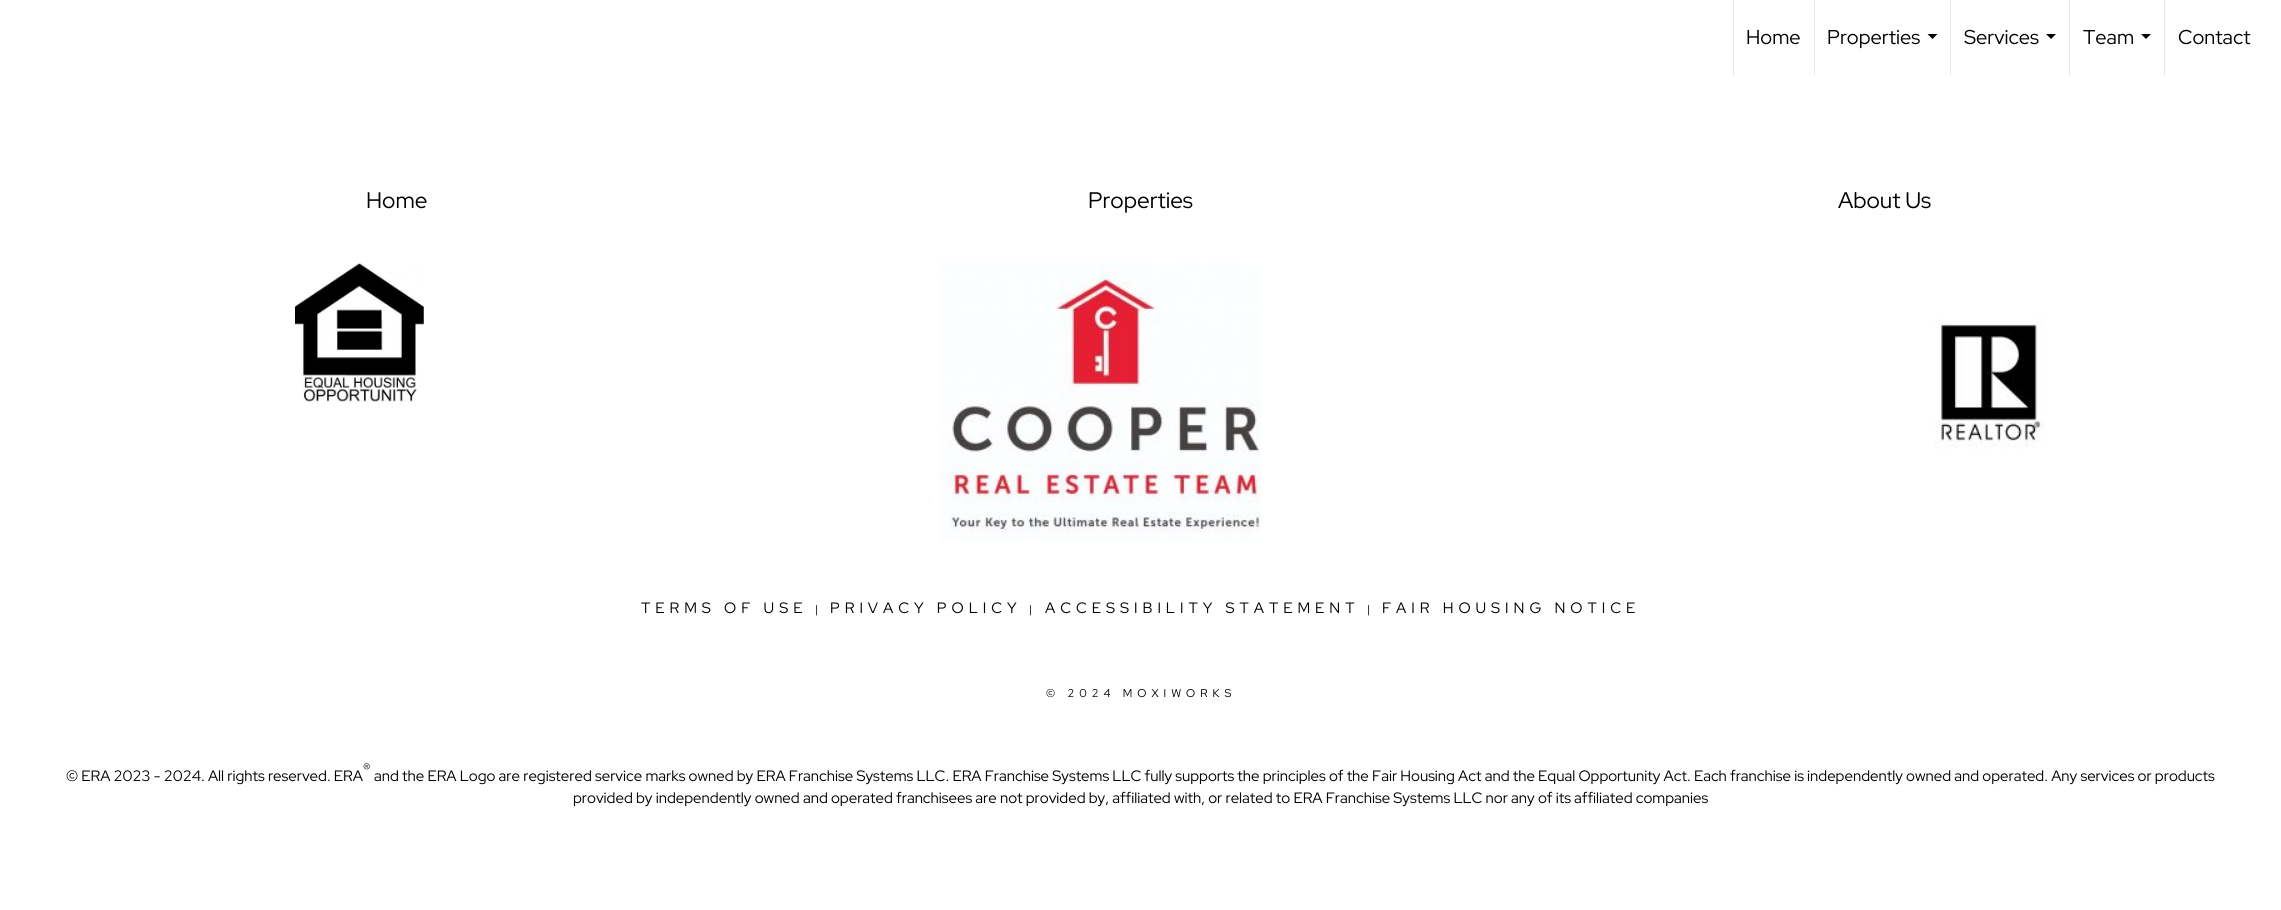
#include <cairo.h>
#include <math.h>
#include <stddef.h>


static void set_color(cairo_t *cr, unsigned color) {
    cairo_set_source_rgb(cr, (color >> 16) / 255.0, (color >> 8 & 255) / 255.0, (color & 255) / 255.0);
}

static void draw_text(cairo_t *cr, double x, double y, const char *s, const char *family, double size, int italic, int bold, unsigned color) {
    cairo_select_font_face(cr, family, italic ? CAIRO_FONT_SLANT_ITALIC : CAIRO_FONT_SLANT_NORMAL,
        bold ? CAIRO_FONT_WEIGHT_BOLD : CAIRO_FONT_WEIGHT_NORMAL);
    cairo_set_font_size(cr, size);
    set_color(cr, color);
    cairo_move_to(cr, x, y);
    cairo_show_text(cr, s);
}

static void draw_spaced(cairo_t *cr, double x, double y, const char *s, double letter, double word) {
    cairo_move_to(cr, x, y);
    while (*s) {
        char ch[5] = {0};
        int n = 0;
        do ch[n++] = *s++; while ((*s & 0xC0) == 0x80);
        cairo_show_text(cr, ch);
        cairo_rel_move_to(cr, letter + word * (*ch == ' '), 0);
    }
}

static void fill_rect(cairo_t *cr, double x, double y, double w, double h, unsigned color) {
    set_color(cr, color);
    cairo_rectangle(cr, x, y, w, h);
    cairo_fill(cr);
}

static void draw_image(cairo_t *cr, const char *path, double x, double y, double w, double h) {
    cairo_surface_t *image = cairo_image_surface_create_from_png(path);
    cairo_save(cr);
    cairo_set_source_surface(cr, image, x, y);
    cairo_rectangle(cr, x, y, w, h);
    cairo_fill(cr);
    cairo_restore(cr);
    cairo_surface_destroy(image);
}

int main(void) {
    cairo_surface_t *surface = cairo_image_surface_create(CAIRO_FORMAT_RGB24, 2281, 910);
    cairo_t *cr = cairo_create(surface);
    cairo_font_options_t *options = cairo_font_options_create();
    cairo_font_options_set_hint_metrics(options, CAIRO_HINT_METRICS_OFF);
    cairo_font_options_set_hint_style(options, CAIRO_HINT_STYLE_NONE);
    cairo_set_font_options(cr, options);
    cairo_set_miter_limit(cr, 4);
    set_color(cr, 0xFFFFFF);
    cairo_paint(cr);
    fill_rect(cr, 1733, 0, 1, 75, 0xE6E6E6);
    draw_text(cr, 1746, 44, "Home", "Red Hat Display", 20, 0, 0, 0x000000);
    fill_rect(cr, 1814, 0, 1, 75, 0xE6E6E6);
    draw_text(cr, 1827, 44, "Properties", "Red Hat Display", 20, 0, 0, 0x000000);
    cairo_new_path(cr);
    cairo_move_to(cr, 1927.5, 34);
    cairo_line_to(cr, 1937.5, 34);
    cairo_line_to(cr, 1932.5, 39);
    cairo_close_path(cr);
    cairo_fill(cr);
    fill_rect(cr, 1950, 0, 1, 75, 0xE6E6E6);
    draw_text(cr, 1964, 44, "Services", "Red Hat Display", 20, 0, 0, 0x000000);
    cairo_new_path(cr);
    cairo_move_to(cr, 2046, 34);
    cairo_line_to(cr, 2056, 34);
    cairo_line_to(cr, 2051, 39);
    cairo_close_path(cr);
    cairo_fill(cr);
    fill_rect(cr, 2069, 0, 1, 75, 0xE6E6E6);
    draw_text(cr, 2083, 44, "Team", "Red Hat Display", 20, 0, 0, 0x000000);
    cairo_new_path(cr);
    cairo_move_to(cr, 2141, 34);
    cairo_line_to(cr, 2151, 34);
    cairo_line_to(cr, 2146, 39);
    cairo_close_path(cr);
    cairo_fill(cr);
    fill_rect(cr, 2164, 0, 1, 75, 0xE6E6E6);
    draw_text(cr, 2178, 44, "Contact", "Red Hat Display", 20, 0, 0, 0x000000);
    draw_text(cr, 366, 208, "Home", "Red Hat Display", 22.5, 0, 0, 0x000000);
    draw_text(cr, 1088, 208, "Properties", "Red Hat Display", 22.5, 0, 0, 0x000000);
    draw_text(cr, 1838, 208, "About Us", "Red Hat Display", 22.5, 0, 0, 0x000000);
    draw_image(cr, "assets/img1.png", 295, 263, 129, 139);
    draw_image(cr, "assets/img2.png", 939, 263, 322, 279);
    draw_image(cr, "assets/img3.png", 1935, 319, 110, 130);
    cairo_set_font_size(cr, 15);
    draw_spaced(cr, 641, 613, "TERMS OF USE", 5, 0);
    cairo_set_font_size(cr, 11.25);
    draw_spaced(cr, 815, 613, "|", 5, 0);
    cairo_set_font_size(cr, 15);
    draw_spaced(cr, 830, 613, "PRIVACY POLICY", 5, 0);
    cairo_set_font_size(cr, 11.25);
    draw_spaced(cr, 1029, 613, "|", 5, 0);
    cairo_set_font_size(cr, 15);
    draw_spaced(cr, 1045, 613, "ACCESSIBILITY STATEMENT", 5, 0);
    cairo_set_font_size(cr, 11.25);
    draw_spaced(cr, 1367, 613, "|", 5, 0);
    cairo_set_font_size(cr, 15);
    draw_spaced(cr, 1382, 613, "FAIR HOUSING NOTICE", 5, 0);
    cairo_set_font_size(cr, 11.25);
    draw_spaced(cr, 1046, 697, "© 2024 MOXIWORKS", 5, 0);
    draw_text(cr, 363, 774, "®", "Red Hat Display", 15, 0, 0, 0x000000);
    draw_text(cr, 66, 781, "© ERA 2023 - 2024. All rights reserved. ERA", "Red Hat Display", 15, 0, 0, 0x000000);
    draw_text(cr, 374, 781, "and the ERA Logo are registered service marks owned by ERA Franchise Systems LLC. ERA Franchise Systems LLC fully supports the principles of the Fair Housing Act and the Equal Opportunity Act. Each franchise is independently owned and operated. Any services or products", "Red Hat Display", 15, 0, 0, 0x000000);
    draw_text(cr, 573, 803, "provided by independently owned and operated franchisees are not provided by, affiliated with, or related to ERA Franchise Systems LLC nor any of its affiliated companies", "Red Hat Display", 15, 0, 0, 0x000000);
    cairo_surface_write_to_png(surface, "output.png");
    cairo_font_options_destroy(options);
    cairo_destroy(cr);
    cairo_surface_destroy(surface);
    return 0;
}
